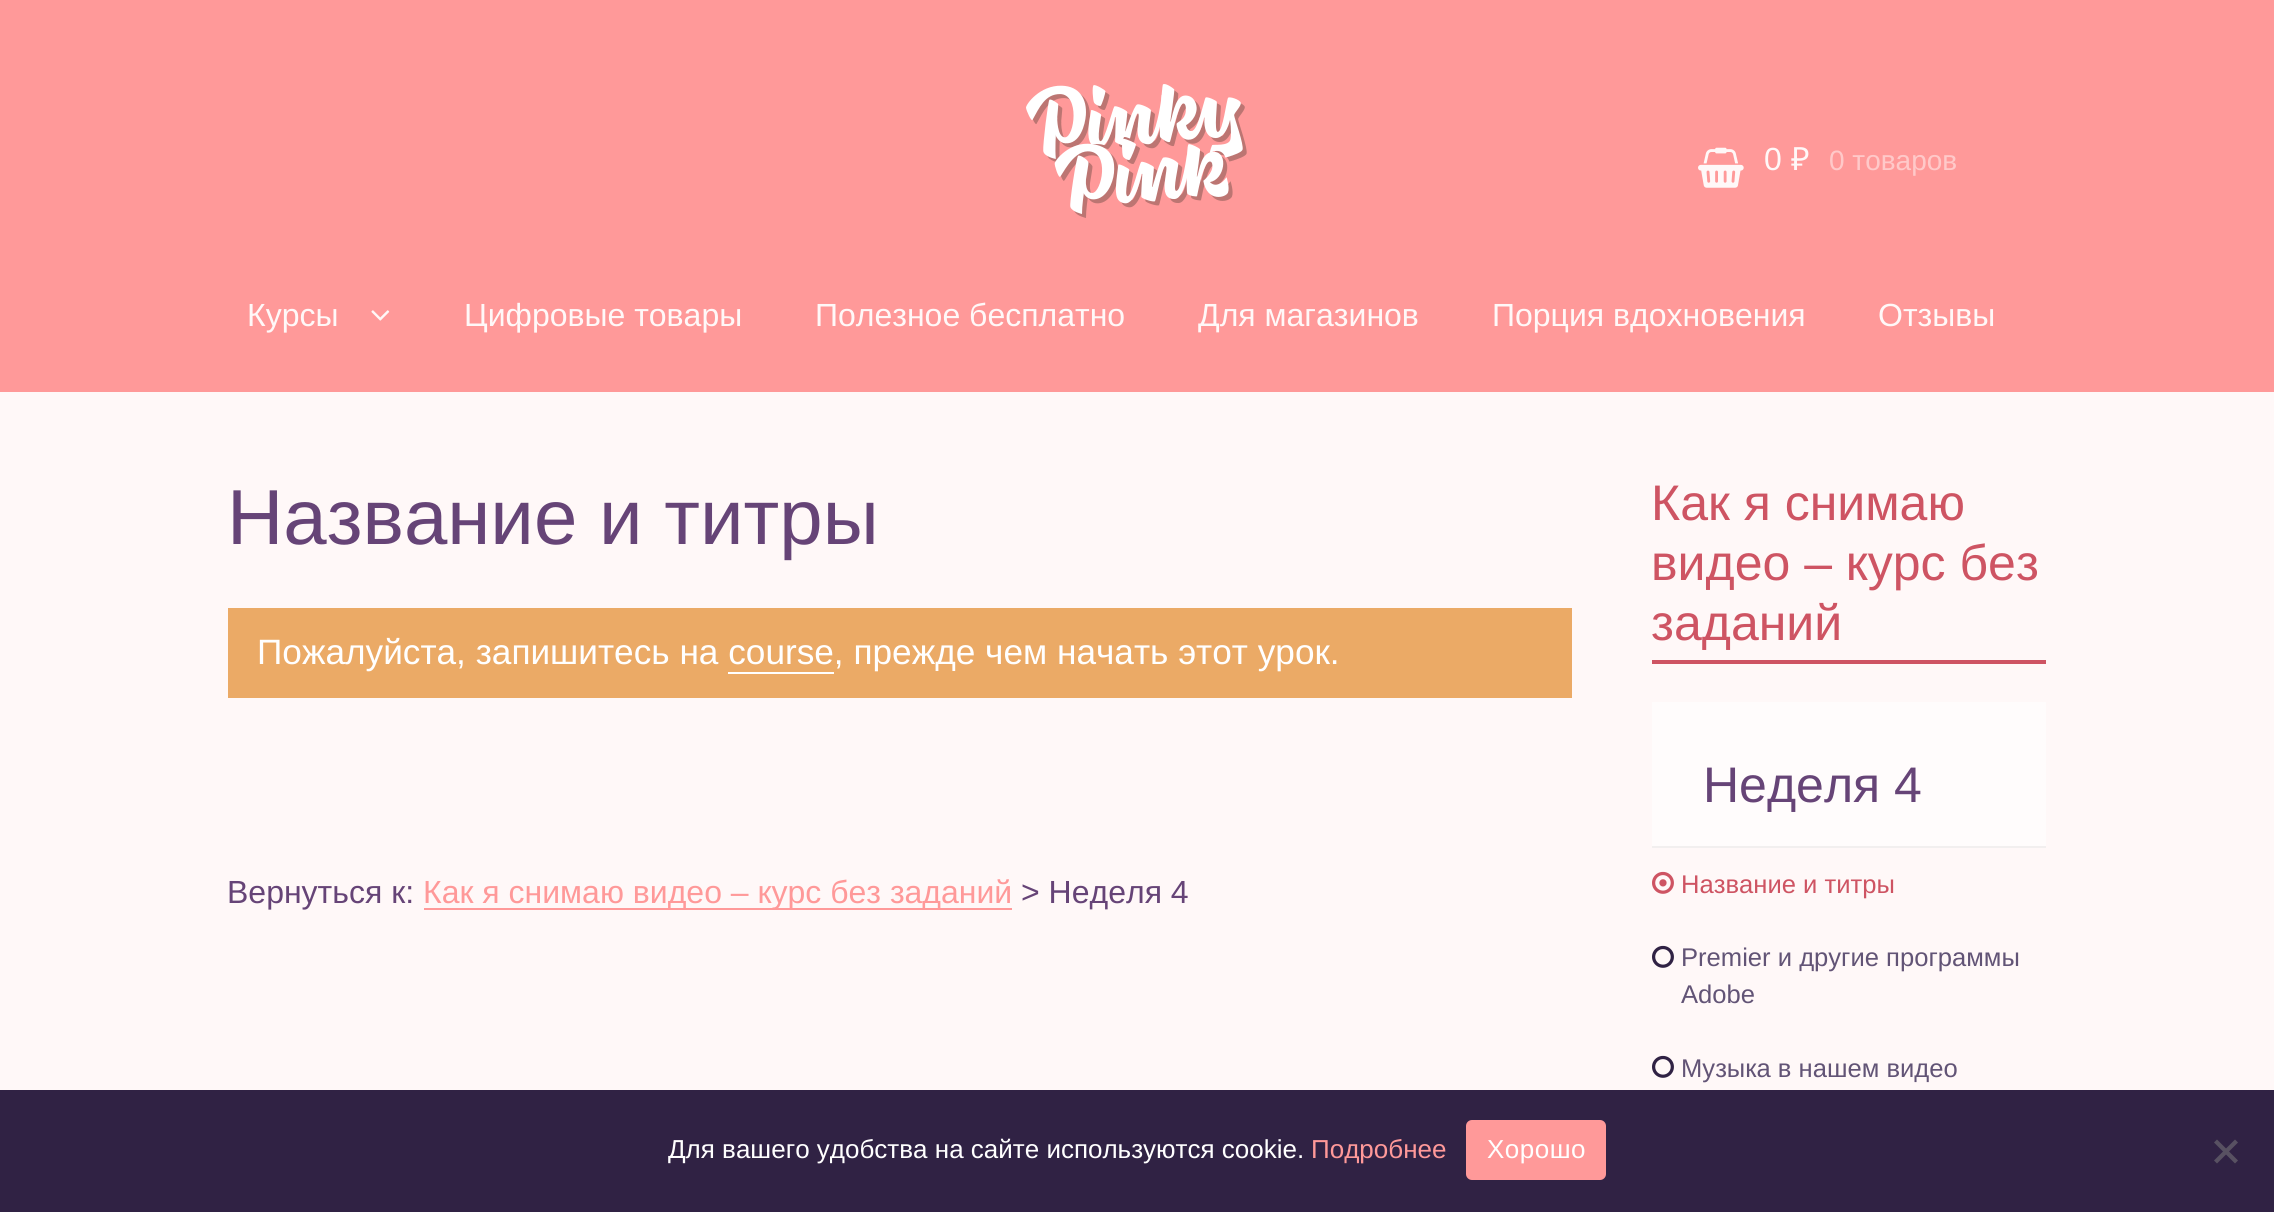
#include <cairo.h>
#include <math.h>
#include <stddef.h>


static void set_color(cairo_t *cr, unsigned color) {
    cairo_set_source_rgb(cr, (color >> 16) / 255.0, (color >> 8 & 255) / 255.0, (color & 255) / 255.0);
}

static void draw_text(cairo_t *cr, double x, double y, const char *s, const char *family, double size, int italic, int bold, unsigned color) {
    cairo_select_font_face(cr, family, italic ? CAIRO_FONT_SLANT_ITALIC : CAIRO_FONT_SLANT_NORMAL,
        bold ? CAIRO_FONT_WEIGHT_BOLD : CAIRO_FONT_WEIGHT_NORMAL);
    cairo_set_font_size(cr, size);
    set_color(cr, color);
    cairo_move_to(cr, x, y);
    cairo_show_text(cr, s);
}

static void draw_spaced(cairo_t *cr, double x, double y, const char *s, double letter, double word) {
    cairo_move_to(cr, x, y);
    while (*s) {
        char ch[5] = {0};
        int n = 0;
        do ch[n++] = *s++; while ((*s & 0xC0) == 0x80);
        cairo_show_text(cr, ch);
        cairo_rel_move_to(cr, letter + word * (*ch == ' '), 0);
    }
}

static void fill_rect(cairo_t *cr, double x, double y, double w, double h, unsigned color) {
    set_color(cr, color);
    cairo_rectangle(cr, x, y, w, h);
    cairo_fill(cr);
}

static void rounded_rect(cairo_t *cr, double x, double y, double w, double h, double r) {
    cairo_new_sub_path(cr);
    cairo_arc(cr, x + w - r, y + h - r, r, 0, M_PI / 2);
    cairo_arc(cr, x + r, y + h - r, r, M_PI / 2, M_PI);
    cairo_arc(cr, x + r, y + r, r, M_PI, 1.5 * M_PI);
    cairo_arc(cr, x + w - r, y + r, r, 1.5 * M_PI, 2 * M_PI);
    cairo_close_path(cr);
}

static void draw_image(cairo_t *cr, const char *path, double x, double y, double w, double h) {
    cairo_surface_t *image = cairo_image_surface_create_from_png(path);
    cairo_save(cr);
    cairo_set_source_surface(cr, image, x, y);
    cairo_rectangle(cr, x, y, w, h);
    cairo_fill(cr);
    cairo_restore(cr);
    cairo_surface_destroy(image);
}

int main(void) {
    cairo_surface_t *surface = cairo_image_surface_create(CAIRO_FORMAT_RGB24, 2274, 1212);
    cairo_t *cr = cairo_create(surface);
    cairo_font_options_t *options = cairo_font_options_create();
    cairo_font_options_set_hint_metrics(options, CAIRO_HINT_METRICS_OFF);
    cairo_font_options_set_hint_style(options, CAIRO_HINT_STYLE_NONE);
    cairo_set_font_options(cr, options);
    cairo_set_miter_limit(cr, 4);
    set_color(cr, 0xFFF8F8);
    cairo_paint(cr);
    fill_rect(cr, 0, 0, 2274, 392, 0xFF9999);
    draw_image(cr, "assets/img1.png", 1026, 84, 221, 134);
    draw_image(cr, "assets/img2.png", 1698, 147, 46, 41);
    draw_text(cr, 1764, 170, "0", "Liberation Sans", 32, 0, 0, 0xFFF8F8);
    draw_text(cr, 1791, 170, "₽", "Noto Sans", 32, 0, 0, 0xFFF8F8);
    draw_text(cr, 1829, 170, "0 товаров", "Liberation Sans", 28, 0, 0, 0xFFC9C9);
    draw_text(cr, 247, 326, "Курсы", "Liberation Sans", 32, 0, 0, 0xFFF8F8);
    draw_image(cr, "assets/img3.png", 371, 310, 19, 11);
    draw_text(cr, 464, 326, "Цифровые товары", "Liberation Sans", 32, 0, 0, 0xFFF8F8);
    draw_text(cr, 815, 326, "Полезное бесплатно", "Liberation Sans", 32, 0, 0, 0xFFF8F8);
    draw_text(cr, 1198, 326, "Для магазинов", "Liberation Sans", 32, 0, 0, 0xFFF8F8);
    draw_text(cr, 1492, 326, "Порция вдохновения", "Liberation Sans", 32, 0, 0, 0xFFF8F8);
    draw_text(cr, 1878, 326, "Отзывы", "Liberation Sans", 32, 0, 0, 0xFFF8F8);
    draw_text(cr, 227, 544, "Название и титры", "Liberation Sans", 78, 0, 0, 0x664477);
    fill_rect(cr, 228, 608, 1344, 90, 0xEBAA66);
    draw_text(cr, 257, 664, "Пожалуйста, запишитесь на course, прежде чем начать этот урок.", "Liberation Sans", 35.2, 0, 0, 0xFFFFFF);
    fill_rect(cr, 728, 672, 106, 2, 0xFFFFFF);
    draw_text(cr, 227, 903, "Вернуться к:", "Liberation Sans", 32, 0, 0, 0x664477);
    fill_rect(cr, 424, 908, 588, 2, 0xFF9999);
    draw_text(cr, 423, 903, "Как я снимаю видео – курс без заданий", "Liberation Sans", 32, 0, 0, 0xFF9999);
    draw_text(cr, 1021, 903, "> Неделя 4", "Liberation Sans", 32, 0, 0, 0x664477);
    fill_rect(cr, 1652, 660, 394, 4, 0xCE5463);
    draw_text(cr, 1651, 520, "Как я снимаю", "Liberation Sans", 50, 0, 0, 0xCE5463);
    draw_text(cr, 1651, 580, "видео – курс без", "Liberation Sans", 50, 0, 0, 0xCE5463);
    draw_text(cr, 1651, 640, "заданий", "Liberation Sans", 50, 0, 0, 0xCE5463);
    fill_rect(cr, 1652, 702, 394, 144, 0xFFFCFC);
    fill_rect(cr, 1652, 846, 394, 2, 0xF2EFEF);
    draw_text(cr, 1703, 802, "Неделя 4", "Liberation Sans", 50, 0, 0, 0x664477);
    draw_image(cr, "assets/img4.png", 1652, 871, 22, 23);
    draw_text(cr, 1681, 893, "Название и титры", "Liberation Sans", 25.6, 0, 0, 0xCE5463);
    draw_image(cr, "assets/img5.png", 1652, 945, 22, 23);
    draw_text(cr, 1681, 966, "Premier и другие программы", "Liberation Sans", 25.6, 0, 0, 0x625476);
    draw_text(cr, 1681, 1003, "Adobe", "Liberation Sans", 25.6, 0, 0, 0x625476);
    draw_image(cr, "assets/img5.png", 1652, 1055, 22, 23);
    draw_text(cr, 1681, 1077, "Музыка в нашем видео", "Liberation Sans", 25.6, 0, 0, 0x625476);
    fill_rect(cr, 0, 1090, 2274, 122, 0x302244);
    draw_text(cr, 668, 1158, "Для вашего удобства на сайте используются cookie.", "Liberation Sans", 26, 0, 0, 0xFFFFFF);
    draw_text(cr, 1311, 1158, "Подробнее", "Liberation Sans", 26, 0, 0, 0xFF9999);
    rounded_rect(cr, 1466, 1120, 140, 60, 6);
    cairo_fill(cr);
    set_color(cr, 0xFFFFFF);
    draw_spaced(cr, 1487, 1158, "Хорошо", 0.5, 0);
    set_color(cr, 0x585162);
    cairo_new_path(cr);
    cairo_move_to(cr, 2235, 1139.5);
    cairo_line_to(cr, 2238, 1142.5);
    cairo_line_to(cr, 2217, 1163.5);
    cairo_line_to(cr, 2214, 1160.5);
    cairo_close_path(cr);
    cairo_fill(cr);
    cairo_new_path(cr);
    cairo_move_to(cr, 2214, 1142.5);
    cairo_line_to(cr, 2217, 1139.5);
    cairo_line_to(cr, 2238, 1160.5);
    cairo_line_to(cr, 2235, 1163.5);
    cairo_close_path(cr);
    cairo_fill(cr);
    cairo_surface_write_to_png(surface, "output.png");
    cairo_font_options_destroy(options);
    cairo_destroy(cr);
    cairo_surface_destroy(surface);
    return 0;
}
